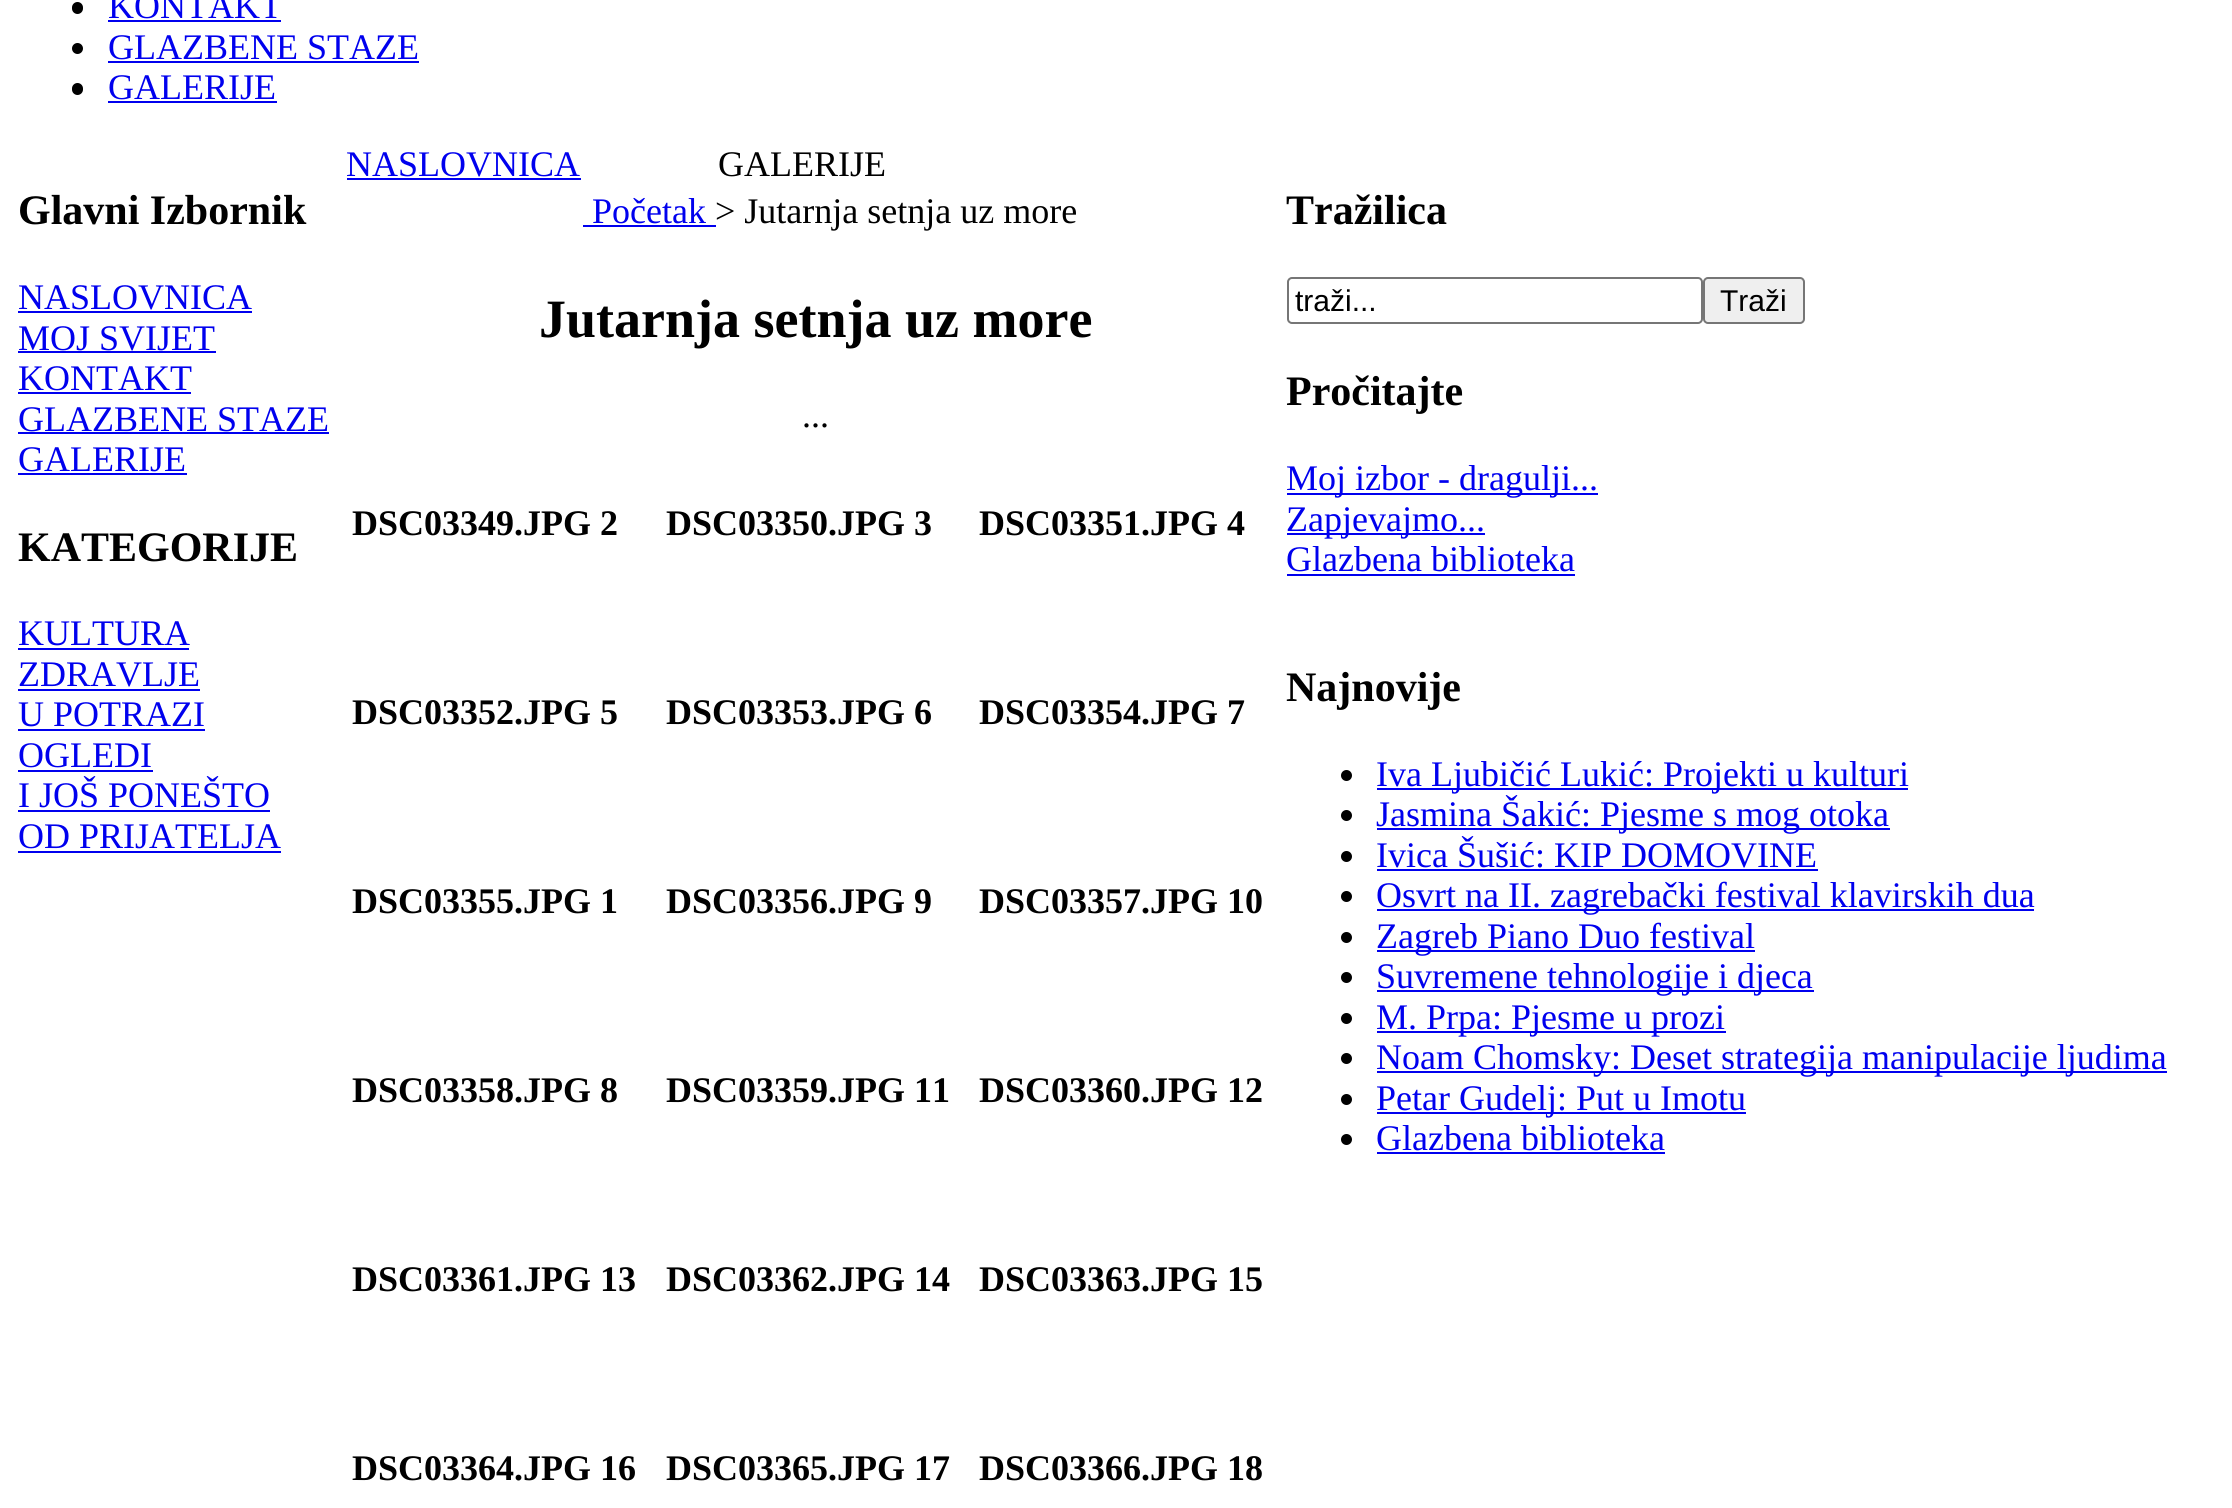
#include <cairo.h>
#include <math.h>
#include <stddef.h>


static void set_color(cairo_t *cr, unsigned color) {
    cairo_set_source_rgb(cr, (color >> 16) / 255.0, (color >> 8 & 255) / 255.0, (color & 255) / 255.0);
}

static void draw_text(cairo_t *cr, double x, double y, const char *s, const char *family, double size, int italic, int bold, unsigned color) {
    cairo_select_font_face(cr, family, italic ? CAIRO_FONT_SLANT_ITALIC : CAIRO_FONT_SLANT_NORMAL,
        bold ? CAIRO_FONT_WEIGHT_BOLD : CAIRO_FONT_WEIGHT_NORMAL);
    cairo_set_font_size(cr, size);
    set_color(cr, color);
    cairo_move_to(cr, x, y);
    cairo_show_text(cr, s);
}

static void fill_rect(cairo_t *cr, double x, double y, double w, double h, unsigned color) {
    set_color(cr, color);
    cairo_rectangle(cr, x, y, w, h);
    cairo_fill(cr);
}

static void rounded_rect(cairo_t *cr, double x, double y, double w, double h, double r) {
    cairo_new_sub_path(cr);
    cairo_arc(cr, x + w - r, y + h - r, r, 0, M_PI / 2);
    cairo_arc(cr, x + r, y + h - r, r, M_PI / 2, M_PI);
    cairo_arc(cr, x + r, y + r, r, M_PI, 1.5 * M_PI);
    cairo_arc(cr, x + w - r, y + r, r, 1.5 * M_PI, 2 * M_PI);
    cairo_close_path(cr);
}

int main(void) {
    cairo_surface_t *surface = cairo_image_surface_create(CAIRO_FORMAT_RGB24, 2232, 1508);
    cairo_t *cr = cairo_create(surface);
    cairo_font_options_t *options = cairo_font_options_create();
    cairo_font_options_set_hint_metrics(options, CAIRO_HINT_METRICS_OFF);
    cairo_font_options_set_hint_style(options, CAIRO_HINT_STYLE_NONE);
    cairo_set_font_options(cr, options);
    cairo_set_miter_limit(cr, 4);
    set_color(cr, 0xFFFFFF);
    cairo_paint(cr);
    set_color(cr, 0x000000);
    rounded_rect(cr, 72, 2, 11, 12, 5.5);
    cairo_fill(cr);
    draw_text(cr, 108, 18, "KONTAKT", "Liberation Serif", 36, 0, 0, 0x0000EE);
    fill_rect(cr, 108, 20, 173, 2, 0x0000EE);
    set_color(cr, 0x000000);
    cairo_new_path(cr);
    cairo_arc(cr, 77.5, 48.5, 5.5, 0, 2 * M_PI);
    cairo_fill(cr);
    draw_text(cr, 108, 59, "GLAZBENE STAZE", "Liberation Serif", 36, 0, 0, 0x0000EE);
    fill_rect(cr, 108, 61, 311, 2, 0x0000EE);
    set_color(cr, 0x000000);
    rounded_rect(cr, 72, 83, 11, 12, 5.5);
    cairo_fill(cr);
    draw_text(cr, 108, 99, "GALERIJE", "Liberation Serif", 36, 0, 0, 0x0000EE);
    fill_rect(cr, 108, 101, 169, 2, 0x0000EE);
    draw_text(cr, 18, 224, "Glavni Izbornik", "Liberation Serif", 42, 0, 1, 0x000000);
    draw_text(cr, 18, 309, "NASLOVNICA", "Liberation Serif", 36, 0, 0, 0x0000EE);
    fill_rect(cr, 18, 311, 234, 2, 0x0000EE);
    draw_text(cr, 18, 350, "MOJ SVIJET", "Liberation Serif", 36, 0, 0, 0x0000EE);
    fill_rect(cr, 18, 351, 198, 2, 0x0000EE);
    draw_text(cr, 18, 390, "KONTAKT", "Liberation Serif", 36, 0, 0, 0x0000EE);
    fill_rect(cr, 18, 392, 173, 2, 0x0000EE);
    draw_text(cr, 18, 431, "GLAZBENE STAZE", "Liberation Serif", 36, 0, 0, 0x0000EE);
    fill_rect(cr, 18, 432, 311, 2, 0x0000EE);
    draw_text(cr, 18, 471, "GALERIJE", "Liberation Serif", 36, 0, 0, 0x0000EE);
    fill_rect(cr, 18, 473, 169, 2, 0x0000EE);
    draw_text(cr, 18, 561, "KATEGORIJE", "Liberation Serif", 42, 0, 1, 0x000000);
    draw_text(cr, 18, 645, "KULTURA", "Liberation Serif", 36, 0, 0, 0x0000EE);
    fill_rect(cr, 18, 648, 171, 2, 0x0000EE);
    draw_text(cr, 18, 686, "ZDRAVLJE", "Liberation Serif", 36, 0, 0, 0x0000EE);
    fill_rect(cr, 18, 689, 182, 2, 0x0000EE);
    draw_text(cr, 18, 726, "U POTRAZI", "Liberation Serif", 36, 0, 0, 0x0000EE);
    fill_rect(cr, 18, 729, 187, 2, 0x0000EE);
    draw_text(cr, 18, 767, "OGLEDI", "Liberation Serif", 36, 0, 0, 0x0000EE);
    fill_rect(cr, 18, 770, 135, 2, 0x0000EE);
    draw_text(cr, 18, 807, "I JOŠ PONEŠTO", "Liberation Serif", 36, 0, 0, 0x0000EE);
    fill_rect(cr, 18, 810, 252, 2, 0x0000EE);
    draw_text(cr, 18, 848, "OD PRIJATELJA", "Liberation Serif", 36, 0, 0, 0x0000EE);
    fill_rect(cr, 18, 851, 263, 2, 0x0000EE);
    draw_text(cr, 346, 176, "NASLOVNICA", "Liberation Serif", 36, 0, 0, 0x0000EE);
    fill_rect(cr, 347, 178, 234, 2, 0x0000EE);
    draw_text(cr, 718, 176, "GALERIJE", "Liberation Serif", 36, 0, 0, 0x000000);
    draw_text(cr, 592, 223, "Početak", "Liberation Serif", 36, 0, 0, 0x0000EE);
    fill_rect(cr, 583, 225, 133, 2, 0x0000EE);
    draw_text(cr, 715, 223, "> Jutarnja setnja uz more", "Liberation Serif", 36, 0, 0, 0x000000);
    draw_text(cr, 539, 337, "Jutarnja setnja uz more", "Liberation Serif", 54, 0, 1, 0x000000);
    draw_text(cr, 802, 427, "...", "Liberation Serif", 36, 0, 0, 0x000000);
    draw_text(cr, 352, 535, "DSC03349.JPG 2", "Liberation Serif", 36, 0, 1, 0x000000);
    draw_text(cr, 666, 535, "DSC03350.JPG 3", "Liberation Serif", 36, 0, 1, 0x000000);
    draw_text(cr, 979, 535, "DSC03351.JPG 4", "Liberation Serif", 36, 0, 1, 0x000000);
    draw_text(cr, 352, 724, "DSC03352.JPG 5", "Liberation Serif", 36, 0, 1, 0x000000);
    draw_text(cr, 666, 724, "DSC03353.JPG 6", "Liberation Serif", 36, 0, 1, 0x000000);
    draw_text(cr, 979, 724, "DSC03354.JPG 7", "Liberation Serif", 36, 0, 1, 0x000000);
    draw_text(cr, 352, 913, "DSC03355.JPG 1", "Liberation Serif", 36, 0, 1, 0x000000);
    draw_text(cr, 666, 913, "DSC03356.JPG 9", "Liberation Serif", 36, 0, 1, 0x000000);
    draw_text(cr, 979, 913, "DSC03357.JPG 10", "Liberation Serif", 36, 0, 1, 0x000000);
    draw_text(cr, 352, 1102, "DSC03358.JPG 8", "Liberation Serif", 36, 0, 1, 0x000000);
    draw_text(cr, 666, 1102, "DSC03359.JPG 11", "Liberation Serif", 36, 0, 1, 0x000000);
    draw_text(cr, 979, 1102, "DSC03360.JPG 12", "Liberation Serif", 36, 0, 1, 0x000000);
    draw_text(cr, 352, 1291, "DSC03361.JPG 13", "Liberation Serif", 36, 0, 1, 0x000000);
    draw_text(cr, 666, 1291, "DSC03362.JPG 14", "Liberation Serif", 36, 0, 1, 0x000000);
    draw_text(cr, 979, 1291, "DSC03363.JPG 15", "Liberation Serif", 36, 0, 1, 0x000000);
    draw_text(cr, 352, 1480, "DSC03364.JPG 16", "Liberation Serif", 36, 0, 1, 0x000000);
    draw_text(cr, 666, 1480, "DSC03365.JPG 17", "Liberation Serif", 36, 0, 1, 0x000000);
    draw_text(cr, 979, 1480, "DSC03366.JPG 18", "Liberation Serif", 36, 0, 1, 0x000000);
    draw_text(cr, 1286, 224, "Tražilica", "Liberation Serif", 42, 0, 1, 0x000000);
    rounded_rect(cr, 1288, 278, 414, 45, 4);
    set_color(cr, 0x767676);
    cairo_stroke(cr);
    draw_text(cr, 1295, 311, "traži...", "Liberation Sans", 30, 0, 0, 0x000000);
    set_color(cr, 0xEFEFEF);
    rounded_rect(cr, 1704, 278, 100, 45, 4);
    cairo_fill_preserve(cr);
    set_color(cr, 0x767676);
    cairo_stroke(cr);
    draw_text(cr, 1720, 311, "Traži", "Liberation Sans", 30, 0, 0, 0x000000);
    draw_text(cr, 1286, 405, "Pročitajte", "Liberation Serif", 42, 0, 1, 0x000000);
    fill_rect(cr, 1287, 493, 311, 2, 0x0000EE);
    draw_text(cr, 1286, 490, "Moj izbor - dragulji...", "Liberation Serif", 36, 0, 0, 0x0000EE);
    fill_rect(cr, 1287, 533, 198, 2, 0x0000EE);
    draw_text(cr, 1286, 531, "Zapjevajmo...", "Liberation Serif", 36, 0, 0, 0x0000EE);
    draw_text(cr, 1286, 571, "Glazbena biblioteka", "Liberation Serif", 36, 0, 0, 0x0000EE);
    fill_rect(cr, 1287, 574, 288, 2, 0x0000EE);
    draw_text(cr, 1286, 701, "Najnovije", "Liberation Serif", 42, 0, 1, 0x000000);
    cairo_new_path(cr);
    cairo_arc(cr, 1346.5, 775.5, 5.5, 0, 2 * M_PI);
    cairo_fill(cr);
    fill_rect(cr, 1377, 788, 531, 2, 0x0000EE);
    draw_text(cr, 1376, 786, "Iva Ljubičić Lukić: Projekti u kulturi", "Liberation Serif", 36, 0, 0, 0x0000EE);
    set_color(cr, 0x000000);
    cairo_new_path(cr);
    cairo_arc(cr, 1346.5, 815.5, 5.5, 0, 2 * M_PI);
    cairo_fill(cr);
    fill_rect(cr, 1377, 828, 513, 2, 0x0000EE);
    draw_text(cr, 1376, 826, "Jasmina Šakić: Pjesme s mog otoka", "Liberation Serif", 36, 0, 0, 0x0000EE);
    set_color(cr, 0x000000);
    cairo_new_path(cr);
    cairo_arc(cr, 1346.5, 856.5, 5.5, 0, 2 * M_PI);
    cairo_fill(cr);
    draw_text(cr, 1376, 867, "Ivica Šušić: KIP DOMOVINE", "Liberation Serif", 36, 0, 0, 0x0000EE);
    fill_rect(cr, 1377, 869, 441, 2, 0x0000EE);
    set_color(cr, 0x000000);
    cairo_new_path(cr);
    cairo_arc(cr, 1346.5, 896.5, 5.5, 0, 2 * M_PI);
    cairo_fill(cr);
    fill_rect(cr, 1377, 909, 657, 2, 0x0000EE);
    draw_text(cr, 1376, 907, "Osvrt na II. zagrebački festival klavirskih dua", "Liberation Serif", 36, 0, 0, 0x0000EE);
    set_color(cr, 0x000000);
    cairo_new_path(cr);
    cairo_arc(cr, 1346.5, 937.5, 5.5, 0, 2 * M_PI);
    cairo_fill(cr);
    fill_rect(cr, 1377, 950, 378, 2, 0x0000EE);
    draw_text(cr, 1376, 948, "Zagreb Piano Duo festival", "Liberation Serif", 36, 0, 0, 0x0000EE);
    set_color(cr, 0x000000);
    cairo_new_path(cr);
    cairo_arc(cr, 1346.5, 977.5, 5.5, 0, 2 * M_PI);
    cairo_fill(cr);
    fill_rect(cr, 1377, 990, 437, 2, 0x0000EE);
    draw_text(cr, 1376, 988, "Suvremene tehnologije i djeca", "Liberation Serif", 36, 0, 0, 0x0000EE);
    set_color(cr, 0x000000);
    cairo_new_path(cr);
    cairo_arc(cr, 1346.5, 1018.5, 5.5, 0, 2 * M_PI);
    cairo_fill(cr);
    fill_rect(cr, 1377, 1031, 349, 2, 0x0000EE);
    draw_text(cr, 1376, 1029, "M. Prpa: Pjesme u prozi", "Liberation Serif", 36, 0, 0, 0x0000EE);
    set_color(cr, 0x000000);
    cairo_new_path(cr);
    cairo_arc(cr, 1346.5, 1058.5, 5.5, 0, 2 * M_PI);
    cairo_fill(cr);
    fill_rect(cr, 1377, 1071, 790, 2, 0x0000EE);
    draw_text(cr, 1376, 1069, "Noam Chomsky: Deset strategija manipulacije ljudima", "Liberation Serif", 36, 0, 0, 0x0000EE);
    set_color(cr, 0x000000);
    cairo_new_path(cr);
    cairo_arc(cr, 1346.5, 1099.5, 5.5, 0, 2 * M_PI);
    cairo_fill(cr);
    fill_rect(cr, 1377, 1112, 369, 2, 0x0000EE);
    draw_text(cr, 1376, 1110, "Petar Gudelj: Put u Imotu", "Liberation Serif", 36, 0, 0, 0x0000EE);
    set_color(cr, 0x000000);
    cairo_new_path(cr);
    cairo_arc(cr, 1346.5, 1139.5, 5.5, 0, 2 * M_PI);
    cairo_fill(cr);
    draw_text(cr, 1376, 1150, "Glazbena biblioteka", "Liberation Serif", 36, 0, 0, 0x0000EE);
    fill_rect(cr, 1377, 1152, 288, 2, 0x0000EE);
    cairo_surface_write_to_png(surface, "output.png");
    cairo_font_options_destroy(options);
    cairo_destroy(cr);
    cairo_surface_destroy(surface);
    return 0;
}
